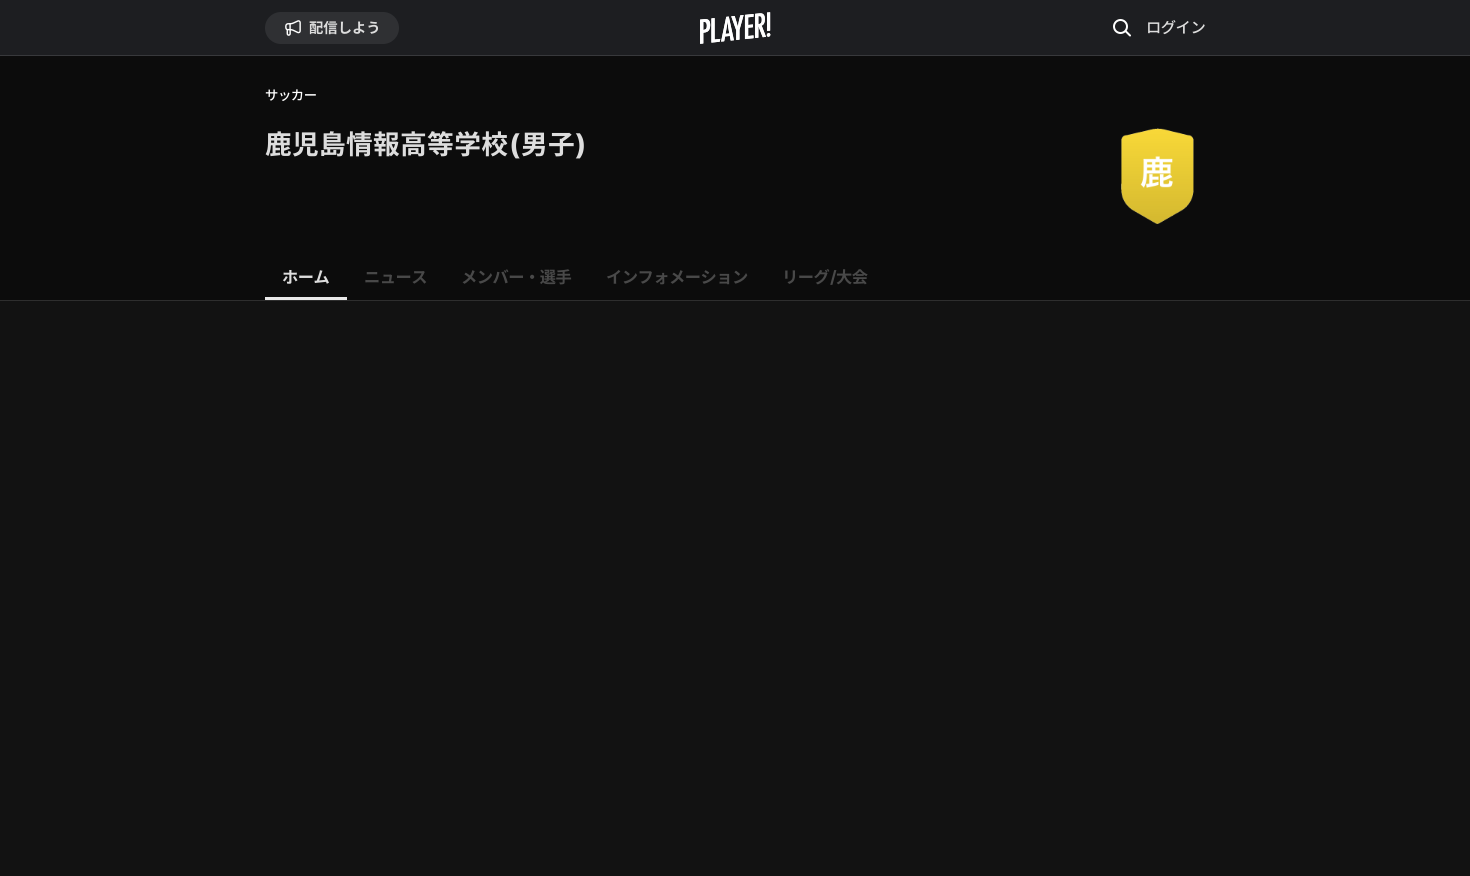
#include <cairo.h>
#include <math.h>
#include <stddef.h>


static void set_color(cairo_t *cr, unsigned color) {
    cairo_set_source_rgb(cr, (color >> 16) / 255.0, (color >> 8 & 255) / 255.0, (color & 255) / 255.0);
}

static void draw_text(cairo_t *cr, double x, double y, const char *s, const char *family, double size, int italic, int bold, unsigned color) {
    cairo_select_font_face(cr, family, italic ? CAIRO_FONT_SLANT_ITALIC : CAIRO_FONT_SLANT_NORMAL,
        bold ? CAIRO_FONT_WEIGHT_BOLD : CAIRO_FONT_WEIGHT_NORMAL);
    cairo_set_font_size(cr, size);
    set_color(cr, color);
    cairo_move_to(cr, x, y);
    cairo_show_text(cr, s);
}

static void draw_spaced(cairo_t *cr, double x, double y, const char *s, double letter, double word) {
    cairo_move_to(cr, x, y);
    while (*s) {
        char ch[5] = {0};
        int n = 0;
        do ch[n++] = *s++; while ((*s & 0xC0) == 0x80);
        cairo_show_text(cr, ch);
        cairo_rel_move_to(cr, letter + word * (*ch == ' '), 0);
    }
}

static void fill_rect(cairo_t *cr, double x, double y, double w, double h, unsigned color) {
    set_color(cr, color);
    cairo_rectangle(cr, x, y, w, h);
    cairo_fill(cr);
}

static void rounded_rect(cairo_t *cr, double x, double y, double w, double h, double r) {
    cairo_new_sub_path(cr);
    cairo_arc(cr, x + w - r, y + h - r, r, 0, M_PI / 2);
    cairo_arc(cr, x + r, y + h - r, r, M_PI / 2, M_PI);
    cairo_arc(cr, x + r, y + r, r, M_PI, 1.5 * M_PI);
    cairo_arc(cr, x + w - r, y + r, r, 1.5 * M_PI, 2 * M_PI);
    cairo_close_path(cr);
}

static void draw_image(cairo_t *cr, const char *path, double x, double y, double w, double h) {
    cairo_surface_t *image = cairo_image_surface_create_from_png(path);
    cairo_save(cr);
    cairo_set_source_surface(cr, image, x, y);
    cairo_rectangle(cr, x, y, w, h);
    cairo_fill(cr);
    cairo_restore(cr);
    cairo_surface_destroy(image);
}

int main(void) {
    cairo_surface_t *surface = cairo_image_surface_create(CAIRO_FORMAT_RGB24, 1470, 876);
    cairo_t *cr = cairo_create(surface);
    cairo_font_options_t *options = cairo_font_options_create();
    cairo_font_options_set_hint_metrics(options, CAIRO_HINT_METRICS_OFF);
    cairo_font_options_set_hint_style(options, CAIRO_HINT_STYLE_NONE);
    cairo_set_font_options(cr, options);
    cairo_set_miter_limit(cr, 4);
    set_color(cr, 0x121212);
    cairo_paint(cr);
    fill_rect(cr, 0, 0, 1470, 55, 0x1D1E21);
    fill_rect(cr, 0, 55, 1470, 1, 0x38393C);
    set_color(cr, 0x2F3033);
    rounded_rect(cr, 265, 12, 134, 32, 16);
    cairo_fill(cr);
    draw_image(cr, "assets/img1.png", 285, 20, 16, 16);
    draw_text(cr, 309, 33, "配信しよう", "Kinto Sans", 15, 0, 1, 0xDDDDDD);
    draw_image(cr, "assets/img2.png", 700, 12, 71, 32);
    draw_image(cr, "assets/img3.png", 1113, 19, 18, 18);
    cairo_select_font_face(cr, "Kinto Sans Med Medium", CAIRO_FONT_SLANT_NORMAL, CAIRO_FONT_WEIGHT_NORMAL);
    cairo_set_font_size(cr, 16);
    draw_spaced(cr, 1146, 33, "ログイン", -0.5, 0);
    fill_rect(cr, 0, 56, 1470, 244, 0x0C0C0C);
    cairo_set_font_size(cr, 14);
    set_color(cr, 0xFFFFFF);
    draw_spaced(cr, 265, 100, "サッカー", -0.5, 0);
    cairo_select_font_face(cr, "Kinto Sans", CAIRO_FONT_SLANT_NORMAL, CAIRO_FONT_WEIGHT_BOLD);
    cairo_set_font_size(cr, 28);
    set_color(cr, 0xDDDDDD);
    draw_spaced(cr, 265, 154, "鹿児島情報高等学校", 0.25, 0);
    cairo_select_font_face(cr, "Inter", CAIRO_FONT_SLANT_NORMAL, CAIRO_FONT_WEIGHT_BOLD);
    draw_spaced(cr, 509, 154, "(", 0.25, 0);
    cairo_select_font_face(cr, "Kinto Sans", CAIRO_FONT_SLANT_NORMAL, CAIRO_FONT_WEIGHT_BOLD);
    draw_spaced(cr, 521, 154, "男子", 0.25, 0);
    cairo_select_font_face(cr, "Inter", CAIRO_FONT_SLANT_NORMAL, CAIRO_FONT_WEIGHT_BOLD);
    draw_spaced(cr, 575, 154, ")", 0.25, 0);
    draw_image(cr, "assets/img4.png", 1121, 128, 73, 96);
    fill_rect(cr, 265, 297, 82, 3, 0xE9E9E9);
    cairo_select_font_face(cr, "Kinto Sans", CAIRO_FONT_SLANT_NORMAL, CAIRO_FONT_WEIGHT_BOLD);
    cairo_set_font_size(cr, 17);
    set_color(cr, 0xDDDDDD);
    draw_spaced(cr, 282, 283, "ホーム", -0.5, 0);
    set_color(cr, 0x494949);
    draw_spaced(cr, 364, 283, "ニュース", -0.5, 0);
    draw_spaced(cr, 461, 283, "メンバー・選手", -0.5, 0);
    draw_spaced(cr, 606, 283, "インフォメーション", -0.5, 0);
    draw_spaced(cr, 782, 283, "リーグ", -0.5, 0);
    cairo_select_font_face(cr, "Inter", CAIRO_FONT_SLANT_NORMAL, CAIRO_FONT_WEIGHT_BOLD);
    draw_spaced(cr, 830, 283, "/", -0.5, 0);
    cairo_select_font_face(cr, "Kinto Sans", CAIRO_FONT_SLANT_NORMAL, CAIRO_FONT_WEIGHT_BOLD);
    draw_spaced(cr, 836, 283, "大会", -0.5, 0);
    fill_rect(cr, 0, 300, 1470, 1, 0x2E2E2E);
    cairo_surface_write_to_png(surface, "output.png");
    cairo_font_options_destroy(options);
    cairo_destroy(cr);
    cairo_surface_destroy(surface);
    return 0;
}
